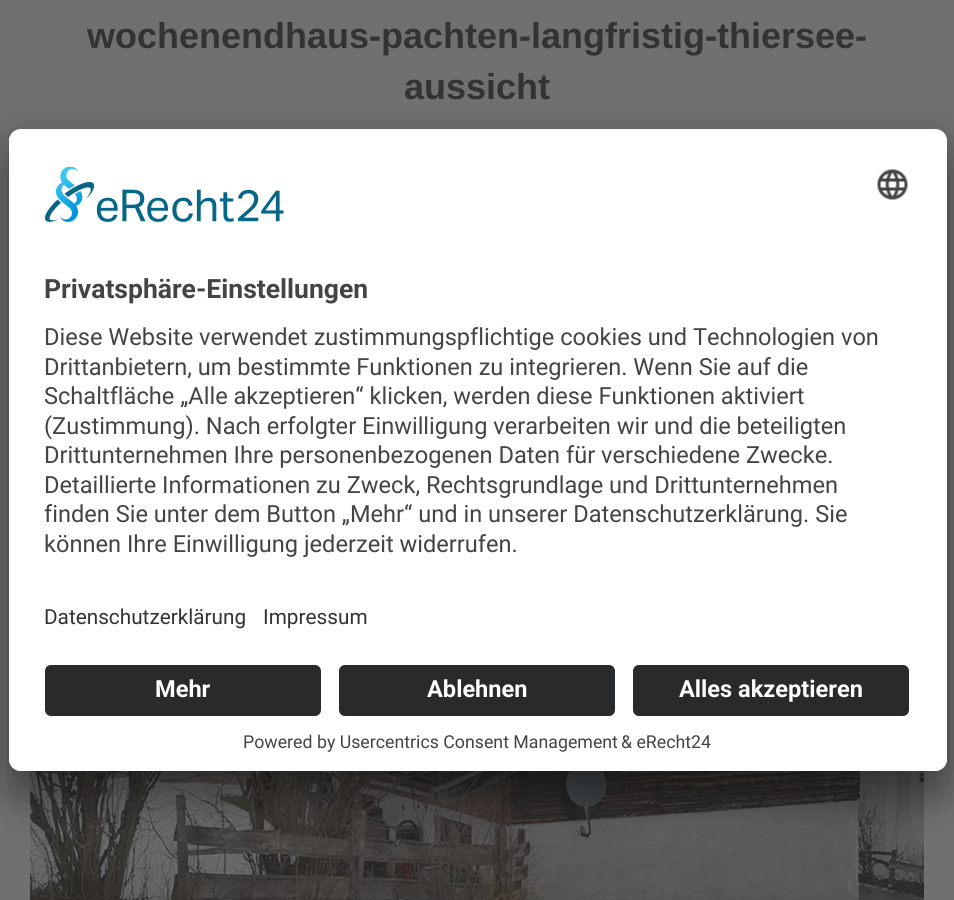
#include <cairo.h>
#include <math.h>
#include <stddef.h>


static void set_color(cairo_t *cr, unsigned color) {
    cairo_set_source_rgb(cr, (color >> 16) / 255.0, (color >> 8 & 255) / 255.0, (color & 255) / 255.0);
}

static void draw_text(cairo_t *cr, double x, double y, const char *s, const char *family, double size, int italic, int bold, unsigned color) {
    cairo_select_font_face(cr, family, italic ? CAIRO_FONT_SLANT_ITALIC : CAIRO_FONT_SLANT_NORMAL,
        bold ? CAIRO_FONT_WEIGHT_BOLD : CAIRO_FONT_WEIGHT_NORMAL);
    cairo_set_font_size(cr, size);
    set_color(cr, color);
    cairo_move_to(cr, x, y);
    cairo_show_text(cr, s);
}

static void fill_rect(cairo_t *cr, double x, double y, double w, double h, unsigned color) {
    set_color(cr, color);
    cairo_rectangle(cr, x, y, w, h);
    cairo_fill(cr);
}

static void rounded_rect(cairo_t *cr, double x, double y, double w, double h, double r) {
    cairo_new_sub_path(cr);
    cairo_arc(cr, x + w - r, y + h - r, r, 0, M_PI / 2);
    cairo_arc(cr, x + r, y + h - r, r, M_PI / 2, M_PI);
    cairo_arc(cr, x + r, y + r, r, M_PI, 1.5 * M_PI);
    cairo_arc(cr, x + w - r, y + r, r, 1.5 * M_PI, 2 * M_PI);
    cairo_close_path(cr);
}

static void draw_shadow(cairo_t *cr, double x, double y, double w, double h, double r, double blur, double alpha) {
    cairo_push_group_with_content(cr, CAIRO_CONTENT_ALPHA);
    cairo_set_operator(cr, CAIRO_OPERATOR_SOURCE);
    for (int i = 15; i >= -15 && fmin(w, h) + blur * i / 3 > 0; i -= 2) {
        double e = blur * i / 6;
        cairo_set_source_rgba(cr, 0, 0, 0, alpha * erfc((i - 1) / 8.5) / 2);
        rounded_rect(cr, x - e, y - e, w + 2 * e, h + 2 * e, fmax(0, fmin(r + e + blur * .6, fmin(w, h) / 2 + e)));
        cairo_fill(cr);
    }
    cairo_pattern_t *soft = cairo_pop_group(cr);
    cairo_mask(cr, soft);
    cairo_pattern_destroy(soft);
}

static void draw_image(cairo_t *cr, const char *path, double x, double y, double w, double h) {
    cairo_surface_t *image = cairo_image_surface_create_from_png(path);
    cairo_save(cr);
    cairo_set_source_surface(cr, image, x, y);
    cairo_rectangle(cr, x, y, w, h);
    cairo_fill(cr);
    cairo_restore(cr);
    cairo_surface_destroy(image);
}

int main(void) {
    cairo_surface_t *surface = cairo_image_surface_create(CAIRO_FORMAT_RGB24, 954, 900);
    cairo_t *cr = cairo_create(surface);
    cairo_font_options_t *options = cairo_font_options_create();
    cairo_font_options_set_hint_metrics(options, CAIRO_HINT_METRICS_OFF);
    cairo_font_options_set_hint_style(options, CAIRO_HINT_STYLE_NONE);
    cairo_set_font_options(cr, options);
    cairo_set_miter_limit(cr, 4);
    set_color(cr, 0x707070);
    cairo_paint(cr);
    draw_text(cr, 87, 48, "wochenendhaus-pachten-langfristig-thiersee-", "Liberation Sans", 36, 0, 1, 0x333333);
    draw_text(cr, 404, 99, "aussicht", "Liberation Sans", 36, 0, 1, 0x333333);
    draw_image(cr, "assets/img1.png", 30, 771, 894, 129);
    set_color(cr, 0x000000);
    draw_shadow(cr, 9, 159, 938, 642, 12, 21, 0.3);
    draw_shadow(cr, 9, 137, 938, 642, 12, 19.5, 0.22);
    set_color(cr, 0xFFFFFF);
    rounded_rect(cr, 9, 129, 938, 642, 12);
    cairo_fill(cr);
    cairo_save(cr);
    rounded_rect(cr, 9, 129, 938, 642, 12);
    cairo_clip(cr);
    cairo_new_path(cr);
    cairo_move_to(cr, 21, 129);
    cairo_line_to(cr, 935, 129);
    cairo_curve_to(cr, 941.5, 129, 947, 134.5, 947, 141);
    cairo_line_to(cr, 947, 653);
    cairo_line_to(cr, 9, 653);
    cairo_line_to(cr, 9, 141);
    cairo_curve_to(cr, 9, 134.5, 14.5, 129, 21, 129);
    cairo_close_path(cr);
    cairo_clip(cr);
    fill_rect(cr, 9, 131, 938, 522, 0xFFFFFF);
    cairo_restore(cr);
    draw_image(cr, "assets/img2.png", 45, 167, 239, 55);
    draw_image(cr, "assets/img3.png", 877, 169, 31, 31);
    draw_text(cr, 44, 298, "Privatsphäre-Einstellungen", "Roboto", 26.5, 0, 1, 0x444444);
    draw_text(cr, 44, 345, "Diese Website verwendet zustimmungspflichtige cookies und Technologien von", "Roboto", 23.6, 0, 0, 0x444444);
    draw_text(cr, 44, 375, "Drittanbietern, um bestimmte Funktionen zu integrieren. Wenn Sie auf die", "Roboto", 23.6, 0, 0, 0x444444);
    draw_text(cr, 44, 404, "Schaltfläche „Alle akzeptieren“ klicken, werden diese Funktionen aktiviert", "Roboto", 23.6, 0, 0, 0x444444);
    draw_text(cr, 44, 434, "(Zustimmung). Nach erfolgter Einwilligung verarbeiten wir und die beteiligten", "Roboto", 23.6, 0, 0, 0x444444);
    draw_text(cr, 44, 463, "Drittunternehmen Ihre personenbezogenen Daten für verschiedene Zwecke.", "Roboto", 23.6, 0, 0, 0x444444);
    draw_text(cr, 44, 493, "Detaillierte Informationen zu Zweck, Rechtsgrundlage und Drittunternehmen", "Roboto", 23.6, 0, 0, 0x444444);
    draw_text(cr, 44, 522, "finden Sie unter dem Button „Mehr“ und in unserer Datenschutzerklärung. Sie", "Roboto", 23.6, 0, 0, 0x444444);
    draw_text(cr, 44, 552, "können Ihre Einwilligung jederzeit widerrufen.", "Roboto", 23.6, 0, 0, 0x444444);
    draw_text(cr, 44, 624, "Datenschutzerklärung", "Roboto", 20.75, 0, 0, 0x333333);
    draw_text(cr, 263, 624, "Impressum", "Roboto", 20.75, 0, 0, 0x333333);
    set_color(cr, 0xFFFFFF);
    cairo_new_path(cr);
    cairo_move_to(cr, 9, 653);
    cairo_line_to(cr, 947, 653);
    cairo_line_to(cr, 947, 759);
    cairo_curve_to(cr, 947, 765.5, 941.5, 771, 935, 771);
    cairo_line_to(cr, 21, 771);
    cairo_curve_to(cr, 14.5, 771, 9, 765.5, 9, 759);
    cairo_close_path(cr);
    cairo_fill(cr);
    set_color(cr, 0x292A2B);
    rounded_rect(cr, 45, 665, 276, 51, 6);
    cairo_fill(cr);
    draw_text(cr, 155, 697, "Mehr", "Roboto", 23.6, 0, 1, 0xFFFFFF);
    set_color(cr, 0x292A2B);
    rounded_rect(cr, 339, 665, 276, 51, 6);
    cairo_fill(cr);
    draw_text(cr, 427, 697, "Ablehnen", "Roboto", 23.6, 0, 1, 0xFFFFFF);
    set_color(cr, 0x292A2B);
    rounded_rect(cr, 633, 665, 276, 51, 6);
    cairo_fill(cr);
    draw_text(cr, 679, 697, "Alles akzeptieren", "Roboto", 23.6, 0, 1, 0xFFFFFF);
    draw_text(cr, 243, 748, "Powered by Usercentrics Consent Management", "Roboto", 17.75, 0, 0, 0x444444);
    draw_text(cr, 621, 748, "& eRecht24", "Roboto", 17.75, 0, 0, 0x444444);
    cairo_surface_write_to_png(surface, "output.png");
    cairo_font_options_destroy(options);
    cairo_destroy(cr);
    cairo_surface_destroy(surface);
    return 0;
}
